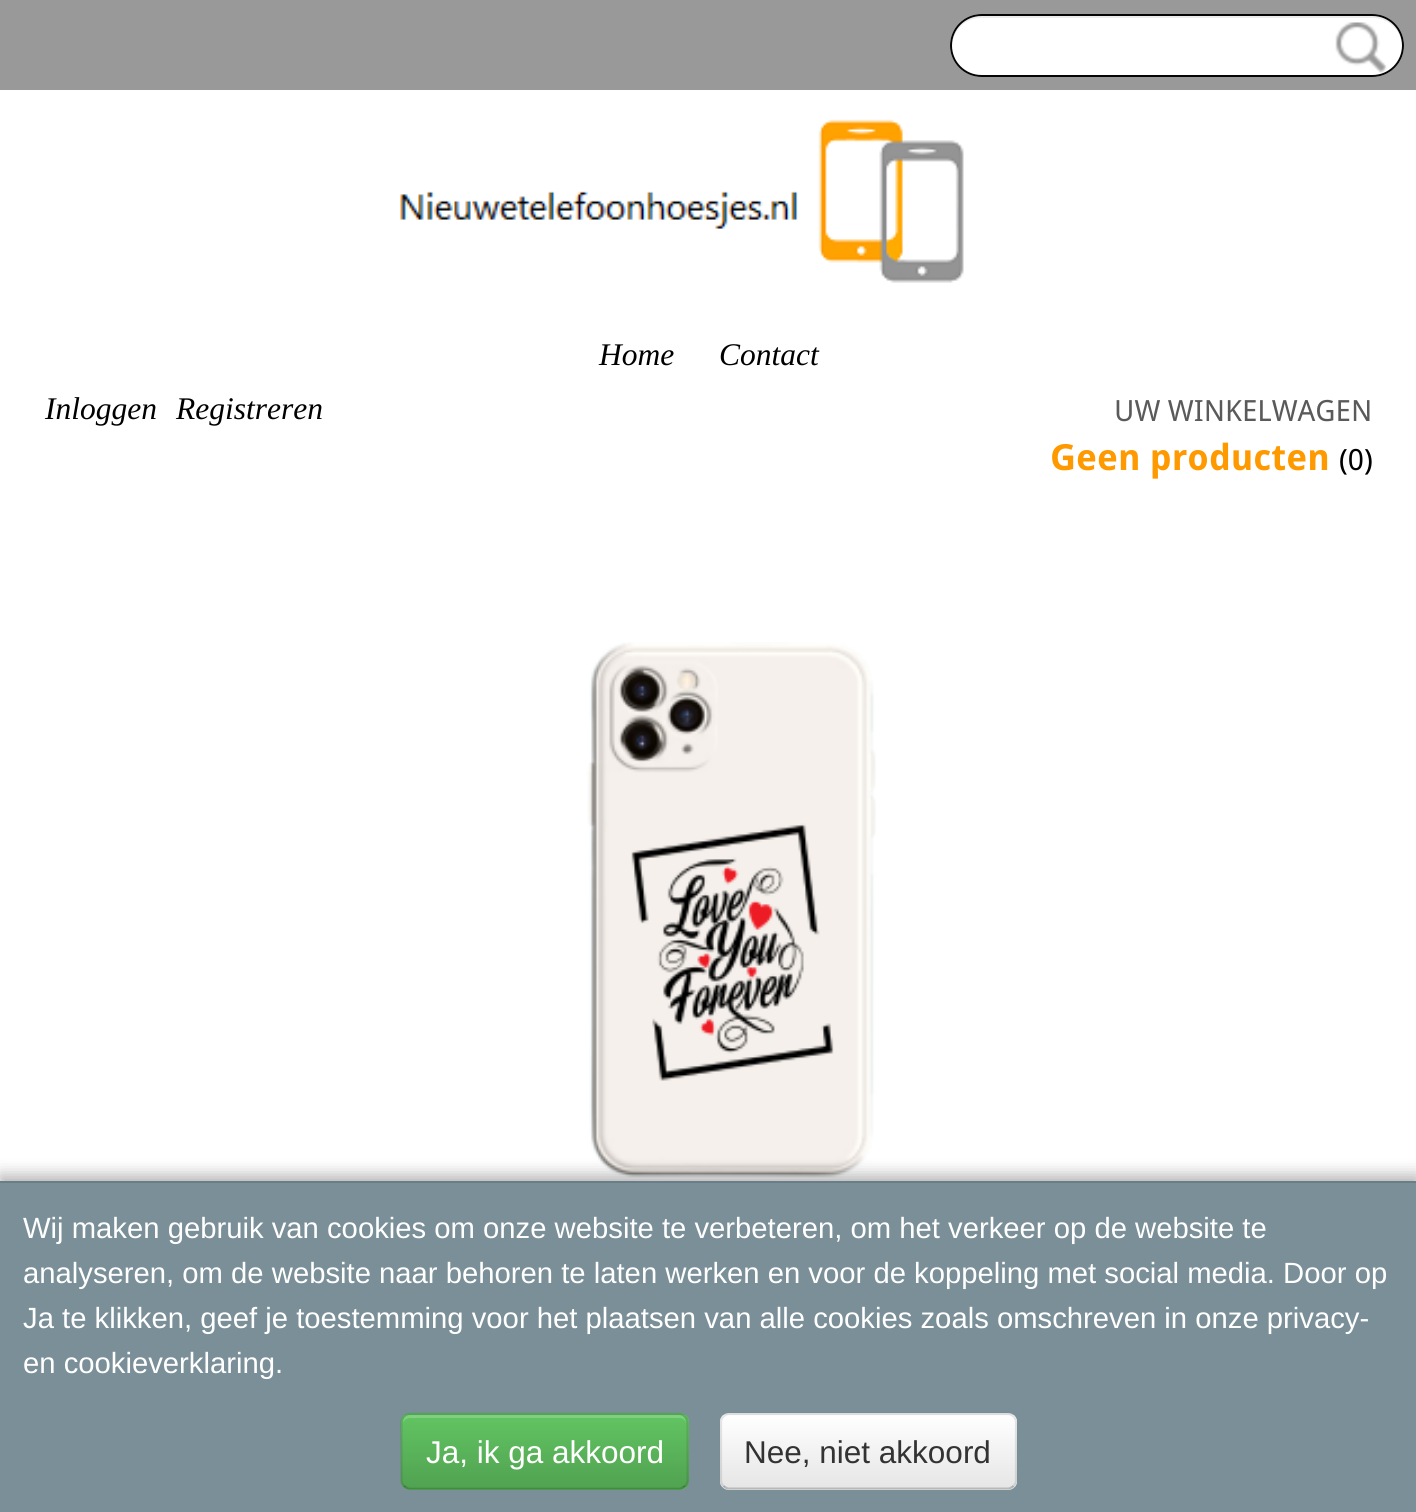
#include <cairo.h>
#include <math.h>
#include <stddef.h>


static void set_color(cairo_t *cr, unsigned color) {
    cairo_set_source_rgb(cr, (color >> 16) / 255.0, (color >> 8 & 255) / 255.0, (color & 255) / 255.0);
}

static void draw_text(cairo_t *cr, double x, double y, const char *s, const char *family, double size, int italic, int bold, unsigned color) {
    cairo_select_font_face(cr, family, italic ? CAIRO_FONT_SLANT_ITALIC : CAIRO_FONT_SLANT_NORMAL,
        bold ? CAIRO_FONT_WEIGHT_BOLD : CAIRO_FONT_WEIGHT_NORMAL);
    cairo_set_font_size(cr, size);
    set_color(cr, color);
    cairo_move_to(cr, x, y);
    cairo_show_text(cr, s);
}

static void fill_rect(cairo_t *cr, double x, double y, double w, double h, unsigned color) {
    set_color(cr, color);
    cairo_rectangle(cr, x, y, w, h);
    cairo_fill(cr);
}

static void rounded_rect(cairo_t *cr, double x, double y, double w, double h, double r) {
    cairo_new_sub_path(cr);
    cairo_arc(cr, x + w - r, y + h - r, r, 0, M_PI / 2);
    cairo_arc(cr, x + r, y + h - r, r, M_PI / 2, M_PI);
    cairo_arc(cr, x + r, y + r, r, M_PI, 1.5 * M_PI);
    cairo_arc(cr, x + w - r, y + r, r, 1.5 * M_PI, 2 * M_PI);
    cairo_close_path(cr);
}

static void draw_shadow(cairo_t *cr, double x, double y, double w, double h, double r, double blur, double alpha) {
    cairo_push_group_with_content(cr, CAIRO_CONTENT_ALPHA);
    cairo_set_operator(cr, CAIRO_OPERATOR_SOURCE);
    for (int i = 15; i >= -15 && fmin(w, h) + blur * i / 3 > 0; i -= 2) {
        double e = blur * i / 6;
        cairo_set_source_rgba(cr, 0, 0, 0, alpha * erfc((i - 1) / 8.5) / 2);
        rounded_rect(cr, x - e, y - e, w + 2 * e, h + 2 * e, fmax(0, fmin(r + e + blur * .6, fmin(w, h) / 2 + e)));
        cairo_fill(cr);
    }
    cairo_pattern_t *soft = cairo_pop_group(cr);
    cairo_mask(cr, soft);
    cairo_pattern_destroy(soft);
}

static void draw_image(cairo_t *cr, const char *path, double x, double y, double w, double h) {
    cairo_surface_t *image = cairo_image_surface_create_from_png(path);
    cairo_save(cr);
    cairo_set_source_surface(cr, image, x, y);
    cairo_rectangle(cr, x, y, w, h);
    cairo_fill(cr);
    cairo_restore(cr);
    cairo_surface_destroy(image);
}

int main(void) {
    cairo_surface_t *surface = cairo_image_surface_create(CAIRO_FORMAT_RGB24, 1416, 1512);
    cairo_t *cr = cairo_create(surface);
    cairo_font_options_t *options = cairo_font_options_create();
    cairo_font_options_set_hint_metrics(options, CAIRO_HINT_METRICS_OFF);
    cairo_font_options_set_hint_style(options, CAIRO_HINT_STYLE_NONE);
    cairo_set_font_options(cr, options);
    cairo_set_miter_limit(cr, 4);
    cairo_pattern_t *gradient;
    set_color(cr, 0xFFFFFF);
    cairo_paint(cr);
    fill_rect(cr, 0, 0, 1416, 90, 0x999999);
    set_color(cr, 0xFFFFFF);
    rounded_rect(cr, 950, 14, 454, 63, 31.5);
    cairo_fill(cr);
    set_color(cr, 0xECECEC);
    cairo_new_path(cr);
    cairo_move_to(cr, 981, 18);
    cairo_line_to(cr, 1372, 18);
    cairo_curve_to(cr, 1389, 18, 1401, 30, 1402, 46);
    cairo_curve_to(cr, 1403, 30, 1389, 16, 1373, 16);
    cairo_line_to(cr, 981, 16);
    cairo_curve_to(cr, 965, 16, 951, 30, 952, 46);
    cairo_curve_to(cr, 953, 30, 965, 18, 981, 18);
    cairo_close_path(cr);
    cairo_fill(cr);
    rounded_rect(cr, 951, 15, 452, 61, 30.5);
    set_color(cr, 0x050505);
    cairo_stroke(cr);
    draw_image(cr, "assets/img1.png", 1335, 22, 52, 51);
    draw_image(cr, "assets/img2.png", 400, 119, 564, 164);
    draw_text(cr, 599, 365, "Home", "Liberation Serif", 31.5, 1, 0, 0x000000);
    draw_text(cr, 719, 365, "Contact", "Liberation Serif", 31.5, 1, 0, 0x000000);
    draw_text(cr, 45, 419, "Inloggen", "Liberation Serif", 31.5, 1, 0, 0x000000);
    draw_text(cr, 176, 419, "Registreren", "Liberation Serif", 31.5, 1, 0, 0x000000);
    draw_text(cr, 1114, 421, "UW WINKELWAGEN", "Droid Sans", 29.25, 0, 0, 0x5A5A5A);
    draw_text(cr, 1050, 470, "Geen producten", "Droid Sans", 36, 0, 1, 0xFF9900);
    draw_text(cr, 1339, 470, "(0)", "Droid Sans", 29.25, 0, 0, 0x000000);
    draw_image(cr, "assets/img3.png", 587, 642, 289, 536);
    set_color(cr, 0x000000);
    draw_shadow(cr, 0, 1175, 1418, 330, 0, 8, 0.3);
    fill_rect(cr, 0, 1183, 1416, 329, 0x7A8F98);
    fill_rect(cr, 0, 1181, 1416, 2, 0x697E87);
    draw_text(cr, 23, 1238, "Wij maken gebruik van cookies om onze website te verbeteren, om het verkeer op de website te", "Liberation Sans", 29.25, 0, 0, 0xFFFFFF);
    draw_text(cr, 23, 1283, "analyseren, om de website naar behoren te laten werken en voor de koppeling met social media. Door op", "Liberation Sans", 29.25, 0, 0, 0xFFFFFF);
    draw_text(cr, 23, 1328, "Ja te klikken, geef je toestemming voor het plaatsen van alle cookies zoals omschreven in onze privacy-", "Liberation Sans", 29.25, 0, 0, 0xFFFFFF);
    draw_text(cr, 23, 1373, "en cookieverklaring.", "Liberation Sans", 29.25, 0, 0, 0xFFFFFF);
    set_color(cr, 0x5BB75B);
    rounded_rect(cr, 401, 1413, 288, 77, 9);
    cairo_fill(cr);
    cairo_save(cr);
    rounded_rect(cr, 401, 1413, 288, 77, 9);
    cairo_clip(cr);
    gradient = cairo_pattern_create_linear(545, 1415, 545, 1487);
    cairo_pattern_add_color_stop_rgba(gradient, 0, 0.384, 0.769, 0.384, 1);
    cairo_pattern_add_color_stop_rgba(gradient, 1, 0.318, 0.639, 0.318, 1);
    cairo_set_source(cr, gradient);
    cairo_pattern_destroy(gradient);
    cairo_rectangle(cr, 401, 1415, 288, 72);
    cairo_fill(cr);
    cairo_restore(cr);
    cairo_set_source_rgba(cr, 1, 1, 1, 0.2);
    cairo_new_path(cr);
    cairo_move_to(cr, 410, 1418);
    cairo_line_to(cr, 680, 1418);
    cairo_curve_to(cr, 683, 1418, 686, 1421, 686, 1424);
    cairo_curve_to(cr, 686, 1420, 684, 1415, 679, 1415);
    cairo_line_to(cr, 409, 1415);
    cairo_curve_to(cr, 404, 1416, 403, 1420, 403, 1424);
    cairo_curve_to(cr, 403, 1421, 406, 1418, 410, 1418);
    cairo_close_path(cr);
    cairo_fill(cr);
    cairo_new_path(cr);
    cairo_move_to(cr, 685, 1486);
    cairo_curve_to(cr, 683.5, 1487.5, 681.5, 1488.5, 679.5, 1488.5);
    cairo_line_to(cr, 409.5, 1488.5);
    cairo_curve_to(cr, 407.5, 1488.5, 405.5, 1487.5, 404, 1486);
    cairo_set_source_rgba(cr, 0, 0, 0, 0.25);
    cairo_set_line_width(cr, 2.2);
    cairo_stroke(cr);
    cairo_new_path(cr);
    cairo_move_to(cr, 404, 1486);
    cairo_curve_to(cr, 402.5, 1484.5, 401.5, 1482.5, 401.5, 1480.5);
    cairo_line_to(cr, 401.5, 1422);
    cairo_curve_to(cr, 401.5, 1420, 402.5, 1418, 404, 1416.5);
    cairo_curve_to(cr, 405.5, 1415, 407.5, 1414, 409.5, 1414);
    cairo_line_to(cr, 679.5, 1414);
    cairo_curve_to(cr, 681.5, 1414, 683.5, 1415, 685, 1416.5);
    cairo_curve_to(cr, 686.5, 1418, 687.5, 1420, 687.5, 1422);
    cairo_line_to(cr, 687.5, 1480.5);
    cairo_curve_to(cr, 687.5, 1482.5, 686.5, 1484.5, 685, 1486);
    cairo_set_source_rgba(cr, 0, 0, 0, 0.1);
    cairo_stroke(cr);
    draw_text(cr, 426, 1463, "Ja, ik ga akkoord", "Liberation Sans", 31.5, 0, 0, 0xFFFFFF);
    set_color(cr, 0xF5F5F5);
    rounded_rect(cr, 720, 1413, 297, 77, 9);
    cairo_fill(cr);
    cairo_save(cr);
    rounded_rect(cr, 720, 1413, 297, 77, 9);
    cairo_clip(cr);
    gradient = cairo_pattern_create_linear(869, 1415, 869, 1487);
    cairo_pattern_add_color_stop_rgba(gradient, 0, 1, 1, 1, 1);
    cairo_pattern_add_color_stop_rgba(gradient, 1, 0.902, 0.902, 0.902, 1);
    cairo_set_source(cr, gradient);
    cairo_pattern_destroy(gradient);
    cairo_rectangle(cr, 720, 1415, 297, 72);
    cairo_fill(cr);
    cairo_restore(cr);
    cairo_new_path(cr);
    cairo_move_to(cr, 1013.5, 1486);
    cairo_curve_to(cr, 1012, 1487.5, 1010, 1488.5, 1008, 1488.5);
    cairo_line_to(cr, 729, 1488.5);
    cairo_curve_to(cr, 727, 1488.5, 725, 1487.5, 723.5, 1486);
    cairo_set_source_rgba(cr, 0, 0, 0, 0.25);
    cairo_stroke(cr);
    cairo_new_path(cr);
    cairo_move_to(cr, 723.5, 1486);
    cairo_curve_to(cr, 722, 1484.5, 721, 1482.5, 721, 1480.5);
    cairo_line_to(cr, 721, 1422);
    cairo_curve_to(cr, 721, 1420, 722, 1418, 723.5, 1416.5);
    cairo_curve_to(cr, 725, 1415, 727, 1414, 729, 1414);
    cairo_line_to(cr, 1008, 1414);
    cairo_curve_to(cr, 1010, 1414, 1012, 1415, 1013.5, 1416.5);
    cairo_curve_to(cr, 1015, 1418, 1016, 1420, 1016, 1422);
    cairo_line_to(cr, 1016, 1480.5);
    cairo_curve_to(cr, 1016, 1482.5, 1015, 1484.5, 1013.5, 1486);
    cairo_set_source_rgba(cr, 0, 0, 0, 0.1);
    cairo_stroke(cr);
    draw_text(cr, 744, 1463, "Nee, niet akkoord", "Liberation Sans", 31.5, 0, 0, 0x333333);
    cairo_surface_write_to_png(surface, "output.png");
    cairo_font_options_destroy(options);
    cairo_destroy(cr);
    cairo_surface_destroy(surface);
    return 0;
}
